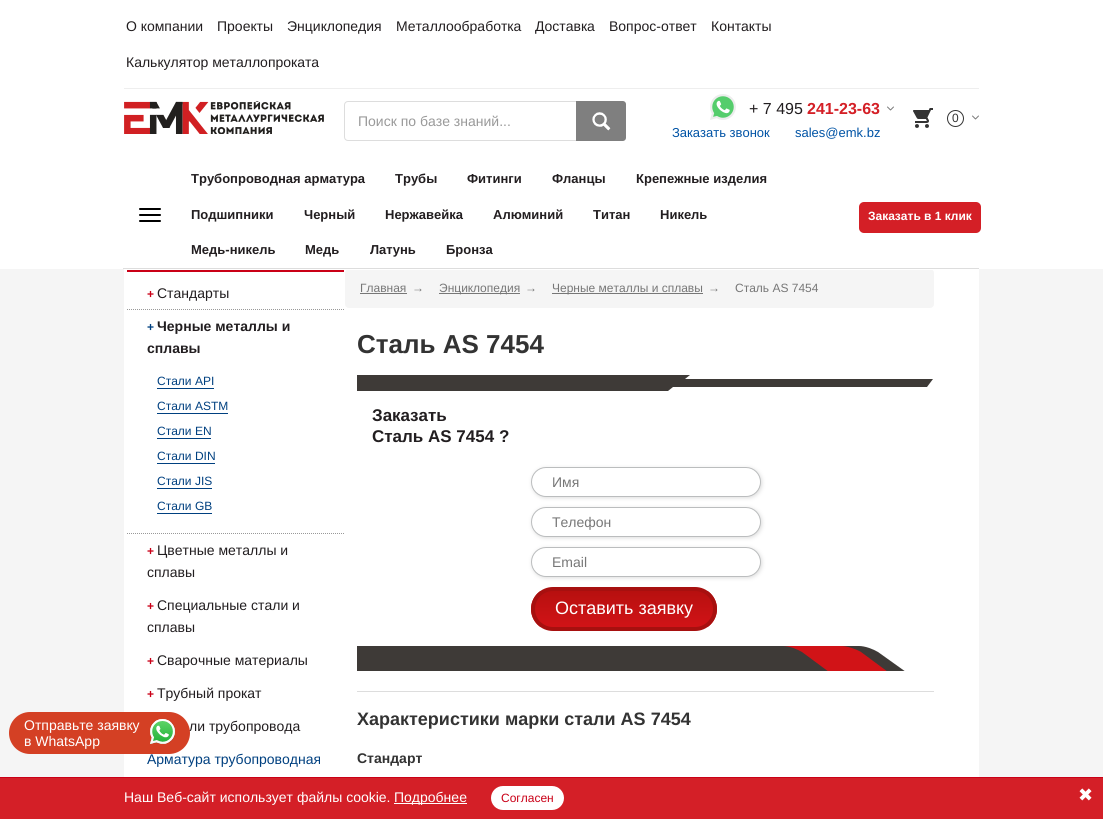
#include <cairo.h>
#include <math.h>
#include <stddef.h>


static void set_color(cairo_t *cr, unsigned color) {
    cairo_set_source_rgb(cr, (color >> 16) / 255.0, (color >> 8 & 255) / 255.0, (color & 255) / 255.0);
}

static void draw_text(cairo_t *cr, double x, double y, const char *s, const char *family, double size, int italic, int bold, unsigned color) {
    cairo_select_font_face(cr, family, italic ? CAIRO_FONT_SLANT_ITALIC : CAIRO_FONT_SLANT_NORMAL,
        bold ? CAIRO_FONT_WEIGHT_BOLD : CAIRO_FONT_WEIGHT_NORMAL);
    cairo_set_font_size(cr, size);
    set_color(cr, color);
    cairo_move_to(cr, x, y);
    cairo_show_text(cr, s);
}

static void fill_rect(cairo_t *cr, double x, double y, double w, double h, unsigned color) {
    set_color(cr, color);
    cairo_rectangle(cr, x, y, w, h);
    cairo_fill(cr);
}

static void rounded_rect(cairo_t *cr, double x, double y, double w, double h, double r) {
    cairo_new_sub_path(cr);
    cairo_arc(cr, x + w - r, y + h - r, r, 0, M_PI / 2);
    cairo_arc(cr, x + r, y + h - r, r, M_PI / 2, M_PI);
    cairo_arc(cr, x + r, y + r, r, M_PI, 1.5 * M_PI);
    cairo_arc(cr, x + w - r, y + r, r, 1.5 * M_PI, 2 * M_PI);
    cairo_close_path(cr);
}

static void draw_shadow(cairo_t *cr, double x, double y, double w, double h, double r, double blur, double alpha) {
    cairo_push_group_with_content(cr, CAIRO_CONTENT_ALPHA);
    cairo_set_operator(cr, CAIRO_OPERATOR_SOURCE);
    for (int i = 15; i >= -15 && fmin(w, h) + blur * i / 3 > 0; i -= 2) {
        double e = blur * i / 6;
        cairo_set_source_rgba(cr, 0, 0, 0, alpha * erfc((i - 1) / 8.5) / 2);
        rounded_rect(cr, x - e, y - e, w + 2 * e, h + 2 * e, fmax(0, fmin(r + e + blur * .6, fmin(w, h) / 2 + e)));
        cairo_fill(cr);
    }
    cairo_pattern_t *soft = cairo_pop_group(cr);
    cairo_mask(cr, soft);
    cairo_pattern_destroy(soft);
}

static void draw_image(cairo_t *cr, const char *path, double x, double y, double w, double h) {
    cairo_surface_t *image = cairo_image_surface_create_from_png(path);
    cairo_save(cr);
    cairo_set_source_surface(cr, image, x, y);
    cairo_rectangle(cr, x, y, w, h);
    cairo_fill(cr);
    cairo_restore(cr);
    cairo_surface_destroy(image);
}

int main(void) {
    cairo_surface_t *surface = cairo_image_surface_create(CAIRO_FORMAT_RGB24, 1103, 819);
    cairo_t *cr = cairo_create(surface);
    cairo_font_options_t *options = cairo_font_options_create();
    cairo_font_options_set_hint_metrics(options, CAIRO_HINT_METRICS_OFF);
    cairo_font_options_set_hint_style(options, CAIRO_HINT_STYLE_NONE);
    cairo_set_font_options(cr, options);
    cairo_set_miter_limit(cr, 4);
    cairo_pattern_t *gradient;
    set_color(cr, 0xF5F5F5);
    cairo_paint(cr);
    fill_rect(cr, 0, 0, 1103, 269, 0xFFFFFF);
    fill_rect(cr, 124, 88, 855, 1, 0xEEEEEE);
    draw_text(cr, 126, 31, "О компании", "Liberation Sans", 14, 0, 0, 0x221E20);
    draw_text(cr, 217, 31, "Проекты", "Liberation Sans", 14, 0, 0, 0x221E20);
    draw_text(cr, 287, 31, "Энциклопедия", "Liberation Sans", 14, 0, 0, 0x221E20);
    draw_text(cr, 396, 31, "Металлообработка", "Liberation Sans", 14, 0, 0, 0x221E20);
    draw_text(cr, 535, 31, "Доставка", "Liberation Sans", 14, 0, 0, 0x221E20);
    draw_text(cr, 609, 31, "Вопрос-ответ", "Liberation Sans", 14, 0, 0, 0x221E20);
    draw_text(cr, 711, 31, "Контакты", "Liberation Sans", 14, 0, 0, 0x221E20);
    draw_text(cr, 126, 67, "Калькулятор металлопроката", "Liberation Sans", 14, 0, 0, 0x221E20);
    draw_image(cr, "assets/img1.png", 124, 101, 200, 33);
    cairo_new_path(cr);
    cairo_move_to(cr, 348, 101.5);
    cairo_line_to(cr, 577.5, 101.5);
    cairo_line_to(cr, 577.5, 140.5);
    cairo_line_to(cr, 348, 140.5);
    cairo_curve_to(cr, 346, 140.5, 344.5, 139, 344.5, 137);
    cairo_line_to(cr, 344.5, 105);
    cairo_curve_to(cr, 344.5, 103, 346, 101.5, 348, 101.5);
    cairo_close_path(cr);
    set_color(cr, 0xDDDDDD);
    cairo_set_line_width(cr, 1);
    cairo_stroke(cr);
    draw_text(cr, 358, 126, "Поиск по базе знаний...", "Liberation Sans", 14, 0, 0, 0x999999);
    set_color(cr, 0x7F7F7F);
    cairo_new_path(cr);
    cairo_move_to(cr, 576, 101);
    cairo_line_to(cr, 623, 101);
    cairo_curve_to(cr, 624.5, 101, 626, 102.5, 626, 104);
    cairo_line_to(cr, 626, 138);
    cairo_curve_to(cr, 626, 139.5, 624.5, 141, 623, 141);
    cairo_line_to(cr, 576, 141);
    cairo_close_path(cr);
    cairo_fill(cr);
    draw_image(cr, "assets/img2.png", 592, 112, 19, 19);
    draw_image(cr, "assets/img3.png", 710, 94, 26, 26);
    draw_text(cr, 749, 114, "+ 7 495", "Liberation Sans", 16, 0, 0, 0x221E20);
    draw_text(cr, 807, 114, "241-23-63", "Liberation Sans", 16, 0, 1, 0xD41F26);
    draw_image(cr, "assets/img4.png", 887, 106, 7, 5);
    draw_text(cr, 672, 137, "Заказать звонок", "Liberation Sans", 13, 0, 0, 0x0053A5);
    draw_text(cr, 795, 137, "sales@emk.bz", "Liberation Sans", 13, 0, 0, 0x0053A5);
    draw_image(cr, "assets/img5.png", 913, 108, 20, 20);
    cairo_arc(cr, 955.5, 118.5, 8, 0, 2 * M_PI);
    set_color(cr, 0x333333);
    cairo_stroke(cr);
    draw_text(cr, 952, 122, "0", "Liberation Sans", 12, 0, 0, 0x333333);
    draw_image(cr, "assets/img4.png", 972, 115, 7, 5);
    fill_rect(cr, 123, 268, 856, 1, 0xDDDDDD);
    draw_text(cr, 191, 183, "Трубопроводная арматура", "Liberation Sans", 13, 0, 1, 0x221E20);
    draw_text(cr, 395, 183, "Трубы", "Liberation Sans", 13, 0, 1, 0x221E20);
    draw_text(cr, 467, 183, "Фитинги", "Liberation Sans", 13, 0, 1, 0x221E20);
    draw_text(cr, 552, 183, "Фланцы", "Liberation Sans", 13, 0, 1, 0x221E20);
    draw_text(cr, 636, 183, "Крепежные изделия", "Liberation Sans", 13, 0, 1, 0x221E20);
    set_color(cr, 0x000000);
    rounded_rect(cr, 139, 208, 22, 2, 1);
    cairo_fill(cr);
    rounded_rect(cr, 139, 214, 22, 2, 1);
    cairo_fill(cr);
    rounded_rect(cr, 139, 220, 22, 2, 1);
    cairo_fill(cr);
    draw_text(cr, 191, 219, "Подшипники", "Liberation Sans", 13, 0, 1, 0x221E20);
    draw_text(cr, 304, 219, "Черный", "Liberation Sans", 13, 0, 1, 0x221E20);
    draw_text(cr, 385, 219, "Нержавейка", "Liberation Sans", 13, 0, 1, 0x221E20);
    draw_text(cr, 493, 219, "Алюминий", "Liberation Sans", 13, 0, 1, 0x221E20);
    draw_text(cr, 593, 219, "Титан", "Liberation Sans", 13, 0, 1, 0x221E20);
    draw_text(cr, 660, 219, "Никель", "Liberation Sans", 13, 0, 1, 0x221E20);
    set_color(cr, 0xD41F26);
    rounded_rect(cr, 859, 202, 122, 31, 5);
    cairo_fill(cr);
    draw_text(cr, 868, 220, "Заказать в 1 клик", "Liberation Sans", 12, 0, 1, 0xFFFFFF);
    draw_text(cr, 191, 254, "Медь-никель", "Liberation Sans", 13, 0, 1, 0x221E20);
    draw_text(cr, 305, 254, "Медь", "Liberation Sans", 13, 0, 1, 0x221E20);
    draw_text(cr, 370, 254, "Латунь", "Liberation Sans", 13, 0, 1, 0x221E20);
    draw_text(cr, 446, 254, "Бронза", "Liberation Sans", 13, 0, 1, 0x221E20);
    fill_rect(cr, 124, 270, 855, 507, 0xFFFFFF);
    set_color(cr, 0xF5F5F5);
    rounded_rect(cr, 345, 269, 589, 39, 4);
    cairo_fill(cr);
    fill_rect(cr, 124, 269, 855, 1, 0xFFFFFF);
    draw_text(cr, 189, 731, "ли трубопровода", "Liberation Sans", 14, 0, 0, 0x221E20);
    draw_text(cr, 147, 764, "Арматура трубопроводная", "Liberation Sans", 14, 0, 0, 0x004080);
    set_color(cr, 0xD44024);
    rounded_rect(cr, 9, 712, 181, 42, 21);
    cairo_fill(cr);
    draw_text(cr, 24, 730, "Отправьте заявку", "Liberation Sans", 14, 0, 0, 0xFFFFFF);
    draw_text(cr, 24, 746, "в WhatsApp", "Liberation Sans", 14, 0, 0, 0xFFFFFF);
    draw_image(cr, "assets/img6.png", 150, 719, 25, 25);
    draw_text(cr, 360, 292, "Главная", "Liberation Sans", 12, 0, 0, 0x777777);
    fill_rect(cr, 360, 293, 47, 1, 0x777777);
    draw_text(cr, 412, 292, "→", "Liberation Sans", 12, 0, 0, 0x777777);
    fill_rect(cr, 439, 293, 81, 1, 0x777777);
    draw_text(cr, 439, 292, "Энциклопедия", "Liberation Sans", 12, 0, 0, 0x777777);
    draw_text(cr, 525, 292, "→", "Liberation Sans", 12, 0, 0, 0x777777);
    fill_rect(cr, 552, 293, 151, 1, 0x777777);
    draw_text(cr, 552, 292, "Черные металлы и сплавы", "Liberation Sans", 12, 0, 0, 0x777777);
    draw_text(cr, 708, 292, "→", "Liberation Sans", 12, 0, 0, 0x777777);
    draw_text(cr, 735, 292, "Сталь AS 7454", "Liberation Sans", 12, 0, 0, 0x777777);
    draw_text(cr, 357, 353, "Сталь AS 7454", "Liberation Sans", 26, 0, 1, 0x333333);
    set_color(cr, 0x3E3A37);
    cairo_new_path(cr);
    cairo_move_to(cr, 685, 379);
    cairo_line_to(cr, 690, 375);
    cairo_line_to(cr, 357, 375);
    cairo_line_to(cr, 357, 391);
    cairo_line_to(cr, 668, 391);
    cairo_line_to(cr, 673, 387);
    cairo_line_to(cr, 927, 387);
    cairo_line_to(cr, 933, 379);
    cairo_close_path(cr);
    cairo_fill(cr);
    draw_text(cr, 372, 421, "Заказать", "Liberation Sans", 17, 0, 1, 0x221E20);
    draw_text(cr, 372, 442, "Сталь AS 7454 ?", "Liberation Sans", 17, 0, 1, 0x221E20);
    set_color(cr, 0xDDDDDD);
    draw_shadow(cr, 532, 468, 230, 30, 15, 2, 1);
    set_color(cr, 0xFFFFFF);
    rounded_rect(cr, 531.5, 467.5, 229, 29, 14.5);
    cairo_fill_preserve(cr);
    set_color(cr, 0xBBBDBE);
    cairo_stroke(cr);
    draw_text(cr, 552, 487, "Имя", "Liberation Sans", 14, 0, 0, 0x777777);
    set_color(cr, 0xDDDDDD);
    draw_shadow(cr, 532, 508, 230, 30, 15, 2, 1);
    set_color(cr, 0xFFFFFF);
    rounded_rect(cr, 531.5, 507.5, 229, 29, 14.5);
    cairo_fill_preserve(cr);
    set_color(cr, 0xBBBDBE);
    cairo_stroke(cr);
    draw_text(cr, 552, 527, "Телефон", "Liberation Sans", 14, 0, 0, 0x777777);
    set_color(cr, 0xDDDDDD);
    draw_shadow(cr, 532, 548, 230, 30, 15, 2, 1);
    set_color(cr, 0xFFFFFF);
    rounded_rect(cr, 531.5, 547.5, 229, 29, 14.5);
    cairo_fill_preserve(cr);
    set_color(cr, 0xBBBDBE);
    cairo_stroke(cr);
    draw_text(cr, 552, 567, "Email", "Liberation Sans", 14, 0, 0, 0x777777);
    cairo_save(cr);
    rounded_rect(cr, 531, 587, 186, 44, 22);
    cairo_clip(cr);
    gradient = cairo_pattern_create_linear(624, 591, 624, 627);
    cairo_pattern_add_color_stop_rgba(gradient, 0, 0.718, 0.063, 0.059, 1);
    cairo_pattern_add_color_stop_rgba(gradient, 1, 0.82, 0.075, 0.09, 1);
    cairo_set_source(cr, gradient);
    cairo_pattern_destroy(gradient);
    cairo_rectangle(cr, 531, 591, 186, 36);
    cairo_fill(cr);
    cairo_restore(cr);
    rounded_rect(cr, 533, 589, 182, 40, 20);
    set_color(cr, 0xA7100F);
    cairo_set_line_width(cr, 4);
    cairo_stroke(cr);
    draw_text(cr, 555, 614, "Оставить заявку", "Liberation Sans", 18, 0, 0, 0xFFFFFF);
    cairo_save(cr);
    cairo_rectangle(cr, 357, 646, 549, 25);
    cairo_clip(cr);
    set_color(cr, 0x3E3A37);
    cairo_new_path(cr);
    cairo_move_to(cr, 878, 652);
    cairo_curve_to(cr, 873, 649, 865, 646, 859, 646);
    cairo_line_to(cr, 357, 646);
    cairo_line_to(cr, 357, 672);
    cairo_line_to(cr, 906, 672);
    cairo_close_path(cr);
    cairo_fill(cr);
    set_color(cr, 0xD11317);
    cairo_new_path(cr);
    cairo_move_to(cr, 861, 652);
    cairo_curve_to(cr, 856, 649, 847, 646, 841, 646);
    cairo_line_to(cr, 783, 646);
    cairo_curve_to(cr, 789, 646, 797, 649, 802, 652);
    cairo_line_to(cr, 829, 672);
    cairo_line_to(cr, 888, 672);
    cairo_close_path(cr);
    cairo_fill(cr);
    cairo_restore(cr);
    fill_rect(cr, 357, 691, 577, 1, 0xDDDDDD);
    draw_text(cr, 357, 725, "Характеристики марки стали AS 7454", "Liberation Sans", 18, 0, 1, 0x333333);
    draw_text(cr, 357, 763, "Стандарт", "Liberation Sans", 14, 0, 1, 0x333333);
    fill_rect(cr, 127, 270, 217, 2, 0xCA0017);
    draw_text(cr, 147, 298, "+", "Liberation Sans", 12, 0, 1, 0xCA0017);
    draw_text(cr, 157, 298, "Стандарты", "Liberation Sans", 14, 0, 0, 0x221E20);
    cairo_new_path(cr);
    cairo_move_to(cr, 127, 309.5);
    cairo_line_to(cr, 344, 309.5);
    set_color(cr, 0x999999);
    cairo_set_line_width(cr, 1);
    cairo_set_dash(cr, (double[]){1, 1}, 2, 0);
    cairo_stroke(cr);
    cairo_new_path(cr);
    cairo_move_to(cr, 127, 533.5);
    cairo_line_to(cr, 344, 533.5);
    cairo_stroke(cr);
    draw_text(cr, 147, 331, "+", "Liberation Sans", 12, 0, 1, 0x004080);
    draw_text(cr, 157, 331, "Черные металлы и", "Liberation Sans", 14, 0, 1, 0x221E20);
    draw_text(cr, 147, 353, "сплавы", "Liberation Sans", 14, 0, 1, 0x221E20);
    draw_text(cr, 157, 385, "Стали API", "Liberation Sans", 12, 0, 0, 0x004080);
    fill_rect(cr, 157, 388, 57, 1, 0x004080);
    draw_text(cr, 157, 410, "Стали ASTM", "Liberation Sans", 12, 0, 0, 0x004080);
    fill_rect(cr, 157, 413, 71, 1, 0x004080);
    draw_text(cr, 157, 435, "Стали EN", "Liberation Sans", 12, 0, 0, 0x004080);
    fill_rect(cr, 157, 438, 54, 1, 0x004080);
    draw_text(cr, 157, 460, "Стали DIN", "Liberation Sans", 12, 0, 0, 0x004080);
    fill_rect(cr, 157, 463, 58, 1, 0x004080);
    draw_text(cr, 157, 485, "Стали JIS", "Liberation Sans", 12, 0, 0, 0x004080);
    fill_rect(cr, 157, 488, 55, 1, 0x004080);
    draw_text(cr, 157, 510, "Стали GB", "Liberation Sans", 12, 0, 0, 0x004080);
    fill_rect(cr, 157, 513, 55, 1, 0x004080);
    draw_text(cr, 147, 555, "+", "Liberation Sans", 12, 0, 1, 0xCA0017);
    draw_text(cr, 157, 555, "Цветные металлы и", "Liberation Sans", 14, 0, 0, 0x221E20);
    draw_text(cr, 147, 577, "сплавы", "Liberation Sans", 14, 0, 0, 0x221E20);
    draw_text(cr, 147, 610, "+", "Liberation Sans", 12, 0, 1, 0xCA0017);
    draw_text(cr, 157, 610, "Специальные стали и", "Liberation Sans", 14, 0, 0, 0x221E20);
    draw_text(cr, 147, 632, "сплавы", "Liberation Sans", 14, 0, 0, 0x221E20);
    draw_text(cr, 147, 665, "+", "Liberation Sans", 12, 0, 1, 0xCA0017);
    draw_text(cr, 157, 665, "Сварочные материалы", "Liberation Sans", 14, 0, 0, 0x221E20);
    draw_text(cr, 147, 698, "+", "Liberation Sans", 12, 0, 1, 0xCA0017);
    draw_text(cr, 157, 698, "Трубный прокат", "Liberation Sans", 14, 0, 0, 0x221E20);
    fill_rect(cr, 0, 778, 1103, 41, 0xD41F27);
    fill_rect(cr, 0, 777, 1103, 1, 0xCA0017);
    draw_text(cr, 124, 802, "Наш Веб-сайт использует файлы cookie.", "Liberation Sans", 14, 0, 0, 0xFFFFFF);
    fill_rect(cr, 394, 803, 73, 1, 0xFFFFFF);
    draw_text(cr, 394, 802, "Подробнее", "Liberation Sans", 14, 0, 0, 0xFFFFFF);
    rounded_rect(cr, 491, 786, 73, 24, 12);
    cairo_fill(cr);
    draw_text(cr, 501, 802, "Согласен", "Liberation Sans", 12, 0, 0, 0xCA0017);
    draw_text(cr, 1078, 801, "✖", "DejaVu Sans", 18, 0, 0, 0xFFFFFF);
    cairo_surface_write_to_png(surface, "output.png");
    cairo_font_options_destroy(options);
    cairo_destroy(cr);
    cairo_surface_destroy(surface);
    return 0;
}
